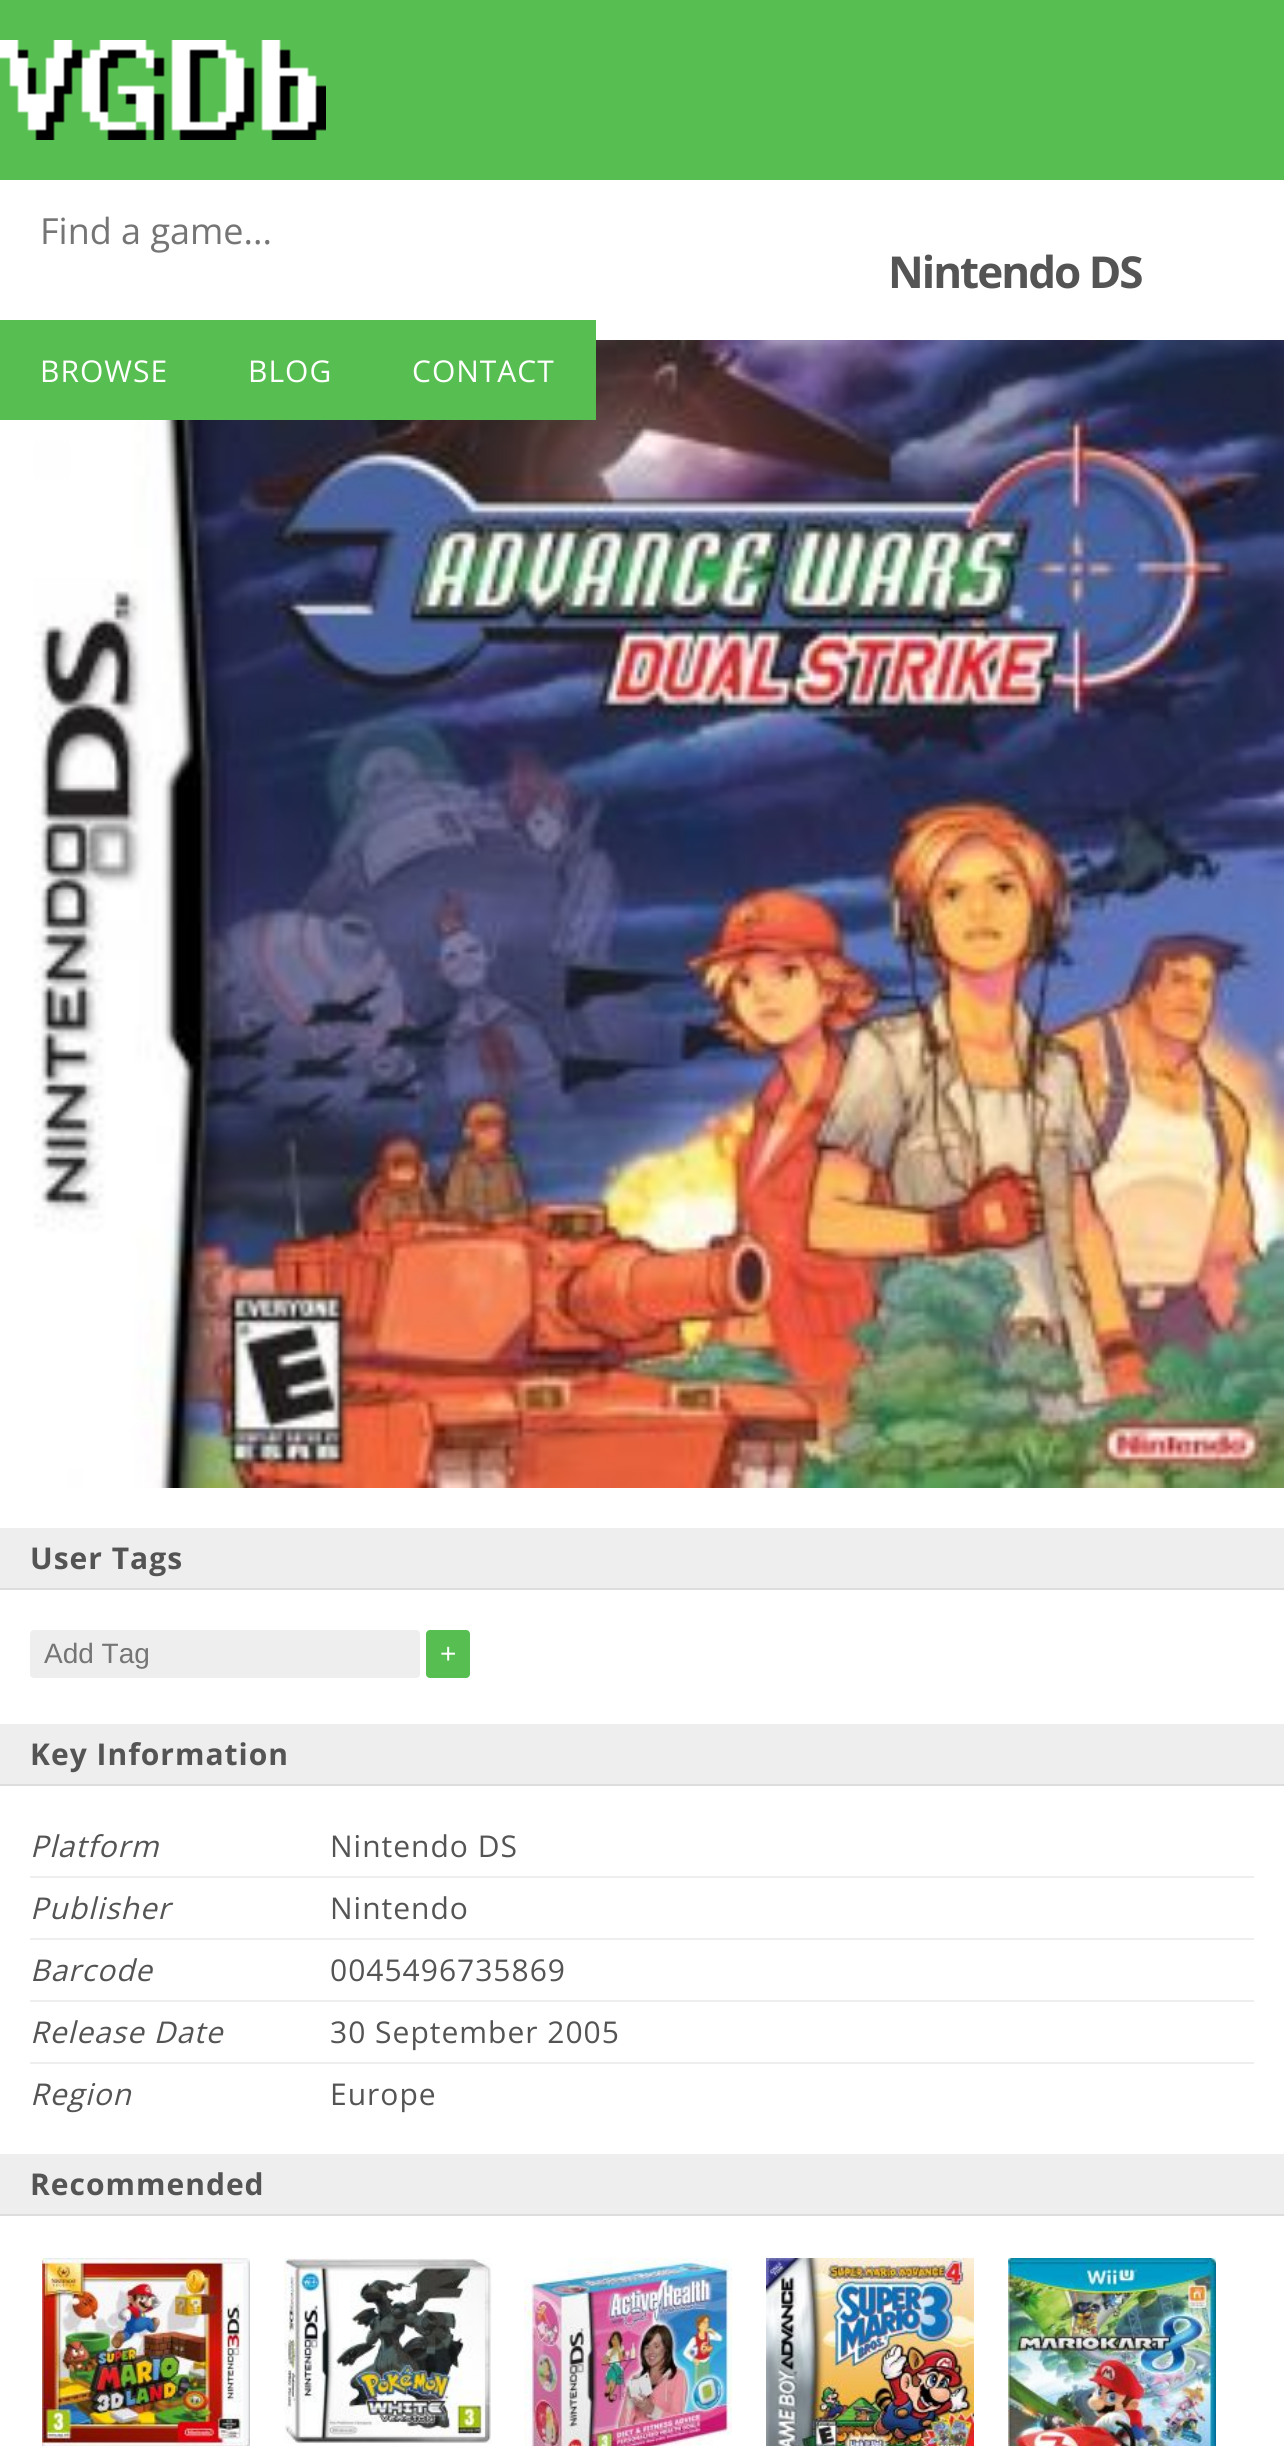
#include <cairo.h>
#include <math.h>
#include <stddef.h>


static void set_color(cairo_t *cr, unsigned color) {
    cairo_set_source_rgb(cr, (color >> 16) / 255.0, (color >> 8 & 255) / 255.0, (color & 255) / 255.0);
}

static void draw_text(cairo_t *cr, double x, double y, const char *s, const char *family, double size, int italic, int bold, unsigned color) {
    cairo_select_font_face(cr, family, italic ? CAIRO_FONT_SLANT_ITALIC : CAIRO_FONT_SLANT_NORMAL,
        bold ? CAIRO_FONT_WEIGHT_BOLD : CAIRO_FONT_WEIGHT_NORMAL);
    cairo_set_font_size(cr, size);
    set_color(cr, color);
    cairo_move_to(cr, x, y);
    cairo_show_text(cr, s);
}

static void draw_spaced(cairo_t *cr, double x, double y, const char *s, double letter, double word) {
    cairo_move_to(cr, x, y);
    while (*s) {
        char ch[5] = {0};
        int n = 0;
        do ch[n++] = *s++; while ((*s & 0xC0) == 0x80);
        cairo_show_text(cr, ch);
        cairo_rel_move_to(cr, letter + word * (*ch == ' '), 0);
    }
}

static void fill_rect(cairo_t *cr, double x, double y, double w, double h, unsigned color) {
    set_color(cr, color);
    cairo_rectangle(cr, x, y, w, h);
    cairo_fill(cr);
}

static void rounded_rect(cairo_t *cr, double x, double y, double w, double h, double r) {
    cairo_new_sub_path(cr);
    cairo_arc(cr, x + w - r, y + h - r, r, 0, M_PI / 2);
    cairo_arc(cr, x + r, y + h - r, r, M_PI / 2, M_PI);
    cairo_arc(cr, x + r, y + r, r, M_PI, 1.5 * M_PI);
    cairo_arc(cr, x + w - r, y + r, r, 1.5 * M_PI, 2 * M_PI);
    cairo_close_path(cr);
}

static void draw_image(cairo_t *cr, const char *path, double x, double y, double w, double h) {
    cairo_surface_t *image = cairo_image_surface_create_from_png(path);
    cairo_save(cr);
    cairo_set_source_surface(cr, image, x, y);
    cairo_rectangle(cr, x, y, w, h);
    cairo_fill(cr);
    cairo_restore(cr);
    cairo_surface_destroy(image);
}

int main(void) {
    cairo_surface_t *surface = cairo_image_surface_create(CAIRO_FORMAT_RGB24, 1284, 2446);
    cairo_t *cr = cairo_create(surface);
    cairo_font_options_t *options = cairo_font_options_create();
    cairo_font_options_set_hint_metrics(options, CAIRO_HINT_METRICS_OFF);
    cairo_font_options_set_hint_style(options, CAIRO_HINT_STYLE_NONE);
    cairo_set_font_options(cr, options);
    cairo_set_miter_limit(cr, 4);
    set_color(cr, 0xFFFFFF);
    cairo_paint(cr);
    fill_rect(cr, 0, 0, 1284, 180, 0x57BF51);
    draw_image(cr, "assets/img1.png", 0, 40, 326, 100);
    draw_text(cr, 40, 244, "Find a game...", "Open Sans", 36, 0, 0, 0x757575);
    draw_image(cr, "assets/img2.png", 33, 340, 1251, 1148);
    fill_rect(cr, 0, 320, 596, 100, 0x57BF51);
    cairo_set_font_size(cr, 30);
    set_color(cr, 0xFFFFFF);
    draw_spaced(cr, 40, 382, "BROWSE", 1, 0);
    draw_spaced(cr, 248, 382, "BLOG", 1, 0);
    draw_spaced(cr, 412, 382, "CONTACT", 1, 0);
    cairo_select_font_face(cr, "Open Sans", CAIRO_FONT_SLANT_NORMAL, CAIRO_FONT_WEIGHT_BOLD);
    cairo_set_font_size(cr, 44);
    set_color(cr, 0x545454);
    draw_spaced(cr, 888, 288, "Nintendo DS", -2, 0);
    fill_rect(cr, 0, 1528, 1284, 60, 0xEEEEEE);
    fill_rect(cr, 0, 1588, 1284, 2, 0xDDDDDD);
    cairo_set_font_size(cr, 30);
    set_color(cr, 0x545454);
    draw_spaced(cr, 30, 1569, "User Tags", 1, 0);
    set_color(cr, 0xEEEEEE);
    rounded_rect(cr, 30, 1630, 390, 48, 4);
    cairo_fill(cr);
    draw_text(cr, 44, 1663, "Add Tag", "Liberation Sans", 28, 0, 0, 0x757575);
    set_color(cr, 0x57BF51);
    rounded_rect(cr, 426, 1630, 44, 48, 4);
    cairo_fill(cr);
    draw_text(cr, 440, 1663, "+", "Liberation Sans", 28, 0, 0, 0xFFFFFF);
    fill_rect(cr, 0, 1724, 1284, 60, 0xEEEEEE);
    fill_rect(cr, 0, 1784, 1284, 2, 0xDDDDDD);
    cairo_select_font_face(cr, "Open Sans", CAIRO_FONT_SLANT_NORMAL, CAIRO_FONT_WEIGHT_BOLD);
    cairo_set_font_size(cr, 30);
    set_color(cr, 0x545454);
    draw_spaced(cr, 30, 1765, "Key Information", 1, 0);
    fill_rect(cr, 30, 1876, 1224, 2, 0xEEEEEE);
    cairo_select_font_face(cr, "Open Sans", CAIRO_FONT_SLANT_ITALIC, CAIRO_FONT_WEIGHT_NORMAL);
    set_color(cr, 0x545454);
    draw_spaced(cr, 30, 1857, "Platform", 1, 0);
    cairo_select_font_face(cr, "Open Sans", CAIRO_FONT_SLANT_NORMAL, CAIRO_FONT_WEIGHT_NORMAL);
    draw_spaced(cr, 330, 1857, "Nintendo DS", 1, 0);
    fill_rect(cr, 30, 1938, 1224, 2, 0xEEEEEE);
    cairo_select_font_face(cr, "Open Sans", CAIRO_FONT_SLANT_ITALIC, CAIRO_FONT_WEIGHT_NORMAL);
    set_color(cr, 0x545454);
    draw_spaced(cr, 30, 1919, "Publisher", 1, 0);
    cairo_select_font_face(cr, "Open Sans", CAIRO_FONT_SLANT_NORMAL, CAIRO_FONT_WEIGHT_NORMAL);
    draw_spaced(cr, 330, 1919, "Nintendo", 1, 0);
    fill_rect(cr, 30, 2000, 1224, 2, 0xEEEEEE);
    cairo_select_font_face(cr, "Open Sans", CAIRO_FONT_SLANT_ITALIC, CAIRO_FONT_WEIGHT_NORMAL);
    set_color(cr, 0x545454);
    draw_spaced(cr, 30, 1981, "Barcode", 1, 0);
    cairo_select_font_face(cr, "Open Sans", CAIRO_FONT_SLANT_NORMAL, CAIRO_FONT_WEIGHT_NORMAL);
    draw_spaced(cr, 330, 1981, "0045496735869", 1, 0);
    fill_rect(cr, 30, 2062, 1224, 2, 0xEEEEEE);
    cairo_select_font_face(cr, "Open Sans", CAIRO_FONT_SLANT_ITALIC, CAIRO_FONT_WEIGHT_NORMAL);
    set_color(cr, 0x545454);
    draw_spaced(cr, 30, 2043, "Release Date", 1, 0);
    cairo_select_font_face(cr, "Open Sans", CAIRO_FONT_SLANT_NORMAL, CAIRO_FONT_WEIGHT_NORMAL);
    draw_spaced(cr, 330, 2043, "30 September 2005", 1, 0);
    cairo_select_font_face(cr, "Open Sans", CAIRO_FONT_SLANT_ITALIC, CAIRO_FONT_WEIGHT_NORMAL);
    draw_spaced(cr, 30, 2105, "Region", 1, 0);
    cairo_select_font_face(cr, "Open Sans", CAIRO_FONT_SLANT_NORMAL, CAIRO_FONT_WEIGHT_NORMAL);
    draw_spaced(cr, 330, 2105, "Europe", 1, 0);
    fill_rect(cr, 0, 2154, 1284, 60, 0xEEEEEE);
    fill_rect(cr, 0, 2214, 1284, 2, 0xDDDDDD);
    cairo_select_font_face(cr, "Open Sans", CAIRO_FONT_SLANT_NORMAL, CAIRO_FONT_WEIGHT_BOLD);
    set_color(cr, 0x545454);
    draw_spaced(cr, 30, 2195, "Recommended", 1, 0);
    draw_image(cr, "assets/img3.png", 42, 2258, 208, 188);
    draw_image(cr, "assets/img4.png", 284, 2258, 208, 186);
    draw_image(cr, "assets/img5.png", 524, 2258, 208, 188);
    draw_image(cr, "assets/img6.png", 766, 2258, 208, 188);
    draw_image(cr, "assets/img7.png", 1008, 2258, 208, 188);
    cairo_surface_write_to_png(surface, "output.png");
    cairo_font_options_destroy(options);
    cairo_destroy(cr);
    cairo_surface_destroy(surface);
    return 0;
}
